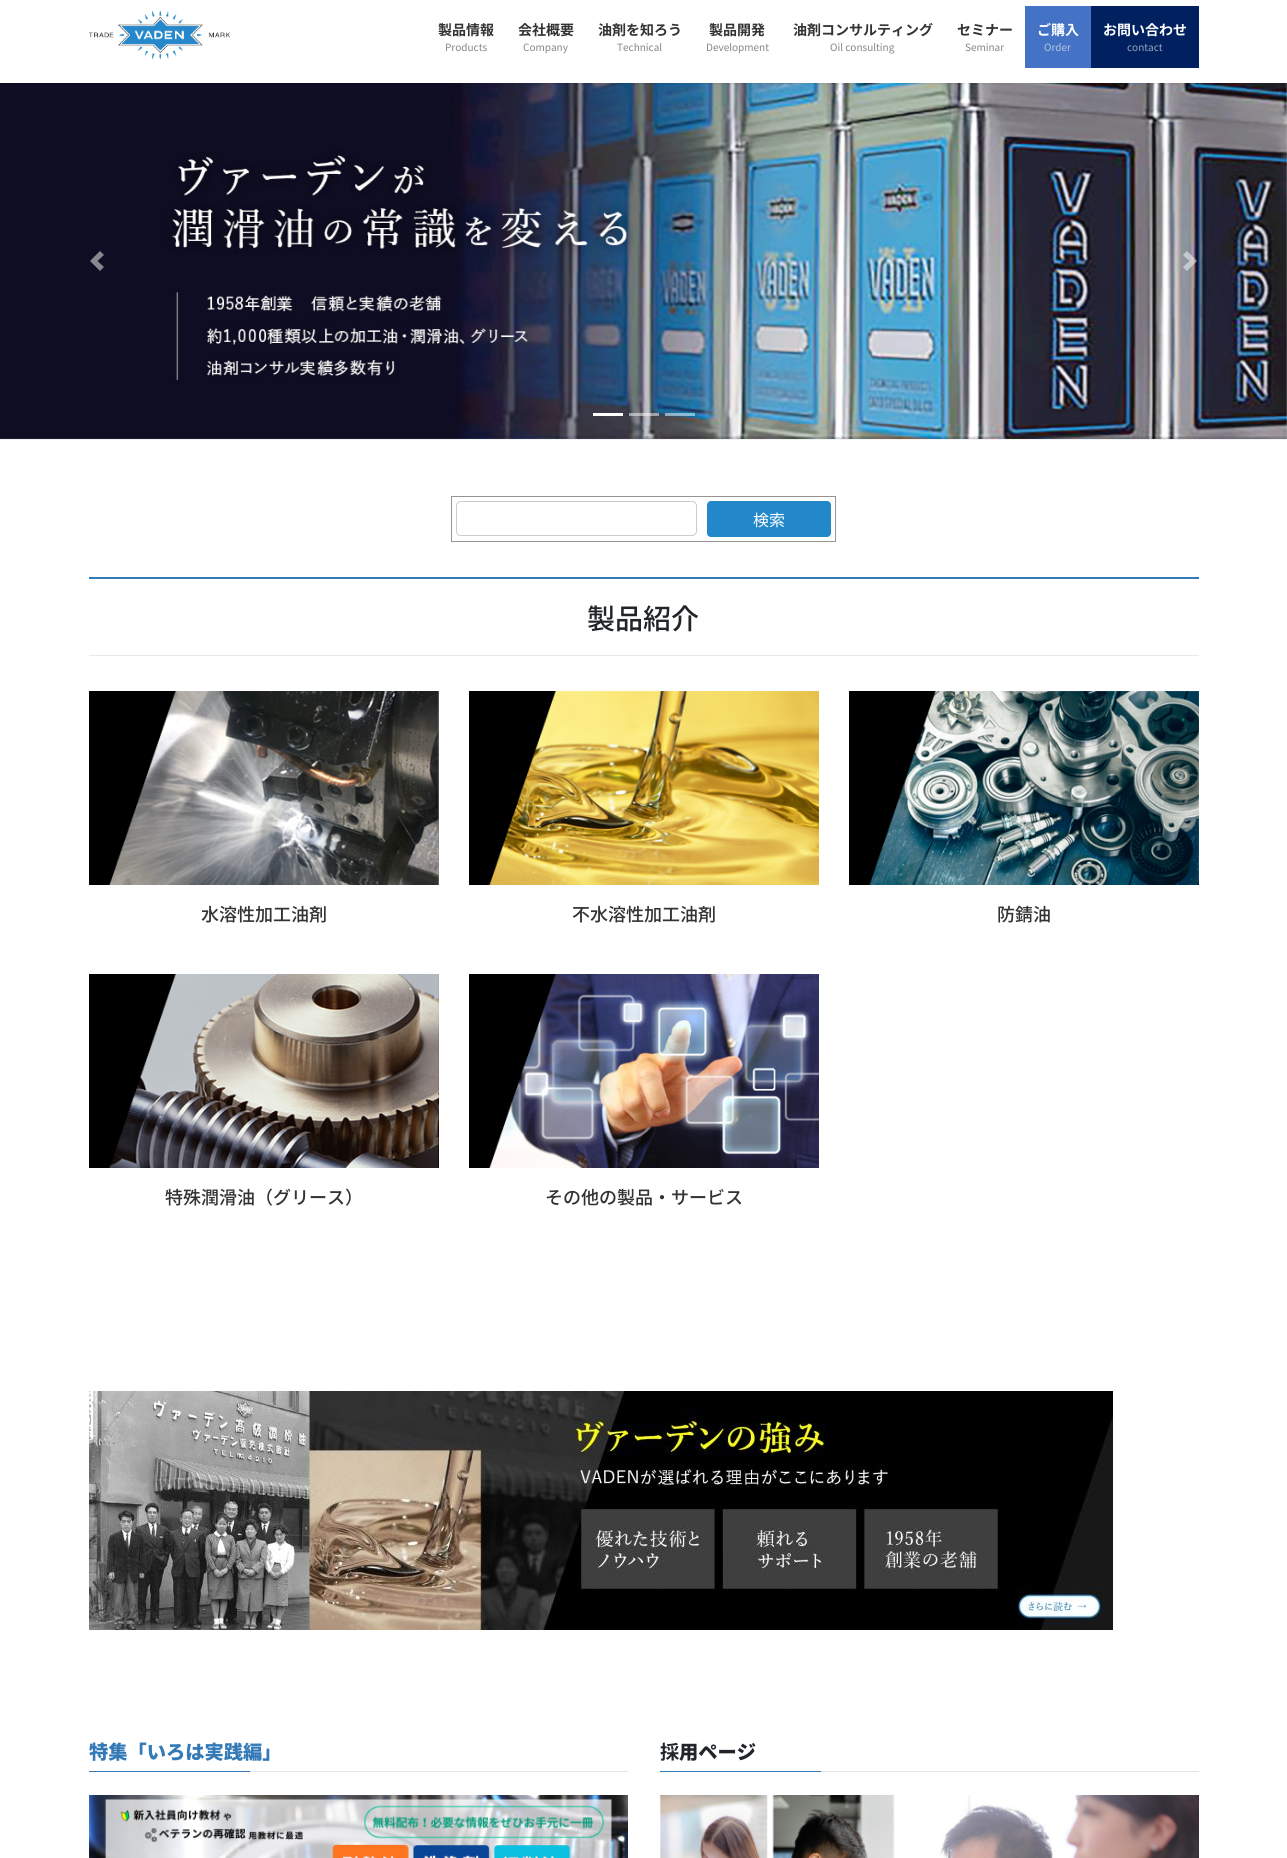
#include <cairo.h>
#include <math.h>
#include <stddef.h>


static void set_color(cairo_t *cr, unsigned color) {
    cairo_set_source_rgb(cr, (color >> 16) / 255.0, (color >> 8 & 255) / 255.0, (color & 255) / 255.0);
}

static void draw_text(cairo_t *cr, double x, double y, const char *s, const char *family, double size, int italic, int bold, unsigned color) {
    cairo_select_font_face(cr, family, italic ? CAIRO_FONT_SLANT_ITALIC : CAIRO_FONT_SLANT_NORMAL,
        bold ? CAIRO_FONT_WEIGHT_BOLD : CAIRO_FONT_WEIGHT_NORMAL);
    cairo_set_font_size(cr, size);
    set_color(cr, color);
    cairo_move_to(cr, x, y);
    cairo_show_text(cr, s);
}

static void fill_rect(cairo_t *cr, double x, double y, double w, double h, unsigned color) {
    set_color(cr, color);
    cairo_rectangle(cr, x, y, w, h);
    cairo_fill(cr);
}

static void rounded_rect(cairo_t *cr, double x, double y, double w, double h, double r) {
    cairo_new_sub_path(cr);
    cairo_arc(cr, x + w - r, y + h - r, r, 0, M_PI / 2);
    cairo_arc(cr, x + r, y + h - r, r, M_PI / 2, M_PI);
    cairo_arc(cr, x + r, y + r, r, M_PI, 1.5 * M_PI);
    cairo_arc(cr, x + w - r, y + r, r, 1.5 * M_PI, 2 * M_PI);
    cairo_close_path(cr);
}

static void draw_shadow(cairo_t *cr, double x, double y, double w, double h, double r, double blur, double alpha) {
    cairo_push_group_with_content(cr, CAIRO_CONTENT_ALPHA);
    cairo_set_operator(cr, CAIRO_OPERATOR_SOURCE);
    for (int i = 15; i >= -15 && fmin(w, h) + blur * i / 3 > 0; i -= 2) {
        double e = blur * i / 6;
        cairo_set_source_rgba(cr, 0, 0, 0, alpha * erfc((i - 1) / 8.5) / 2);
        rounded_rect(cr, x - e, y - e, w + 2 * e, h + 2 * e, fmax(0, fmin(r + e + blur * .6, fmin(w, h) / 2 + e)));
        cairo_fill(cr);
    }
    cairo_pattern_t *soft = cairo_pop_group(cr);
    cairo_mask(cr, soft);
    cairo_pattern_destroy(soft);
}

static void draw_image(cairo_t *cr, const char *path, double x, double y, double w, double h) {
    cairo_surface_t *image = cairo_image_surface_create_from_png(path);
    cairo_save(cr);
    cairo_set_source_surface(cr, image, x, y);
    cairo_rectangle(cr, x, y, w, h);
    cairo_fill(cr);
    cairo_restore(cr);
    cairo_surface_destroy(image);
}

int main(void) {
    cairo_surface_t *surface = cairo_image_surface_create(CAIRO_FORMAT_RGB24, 1287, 1858);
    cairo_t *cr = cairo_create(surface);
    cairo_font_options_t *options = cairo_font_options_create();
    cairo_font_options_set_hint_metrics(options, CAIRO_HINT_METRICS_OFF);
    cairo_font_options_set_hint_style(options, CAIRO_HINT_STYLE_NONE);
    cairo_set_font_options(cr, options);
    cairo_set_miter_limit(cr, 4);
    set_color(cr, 0xFFFFFF);
    cairo_paint(cr);
    draw_image(cr, "assets/img2.png", 0, 83, 1287, 356);
    cairo_save(cr);
    cairo_rectangle(cr, 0, 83, 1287, 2);
    cairo_clip(cr);
    set_color(cr, 0x000000);
    draw_shadow(cr, 0, 1, 1287, 83, 0, 1.5, 0.1);
    cairo_restore(cr);
    draw_image(cr, "assets/img1.png", 89, 10, 141, 50);
    draw_text(cr, 438, 35, "製品情報", "Noto Sans JP", 14, 0, 1, 0x333333);
    draw_text(cr, 445, 51, "Products", "Noto Sans JP", 10, 0, 0, 0x858585);
    draw_text(cr, 518, 35, "会社概要", "Noto Sans JP", 14, 0, 1, 0x333333);
    draw_text(cr, 523, 51, "Company", "Noto Sans JP", 10, 0, 0, 0x858585);
    draw_text(cr, 598, 35, "油剤を知ろう", "Noto Sans JP", 14, 0, 1, 0x333333);
    draw_text(cr, 617, 51, "Technical", "Noto Sans JP", 10, 0, 0, 0x858585);
    draw_text(cr, 709, 35, "製品開発", "Noto Sans JP", 14, 0, 1, 0x333333);
    draw_text(cr, 706, 51, "Development", "Noto Sans JP", 10, 0, 0, 0x858585);
    draw_text(cr, 793, 35, "油剤コンサルティング", "Noto Sans JP", 14, 0, 1, 0x333333);
    draw_text(cr, 830, 51, "Oil consulting", "Noto Sans JP", 10, 0, 0, 0x858585);
    draw_text(cr, 957, 35, "セミナー", "Noto Sans JP", 14, 0, 1, 0x333333);
    draw_text(cr, 965, 51, "Seminar", "Noto Sans JP", 10, 0, 0, 0x858585);
    fill_rect(cr, 1025, 6, 66, 62, 0x4472C4);
    draw_text(cr, 1037, 35, "ご購入", "Noto Sans JP", 14, 0, 1, 0xFFFFFF);
    draw_text(cr, 1044, 51, "Order", "Noto Sans JP", 10, 0, 0, 0xB4C7E7);
    fill_rect(cr, 1091, 6, 108, 62, 0x002060);
    draw_text(cr, 1103, 35, "お問い合わせ", "Noto Sans JP", 14, 0, 1, 0xFFFFFF);
    draw_text(cr, 1127, 51, "contact", "Noto Sans JP", 10, 0, 0, 0x99A6BF);
    fill_rect(cr, 0, 439, 1287, 1, 0xF2F2F2);
    set_color(cr, 0x878691);
    cairo_new_path(cr);
    cairo_move_to(cr, 100, 251);
    cairo_line_to(cr, 90, 261);
    cairo_line_to(cr, 100, 271);
    cairo_line_to(cr, 104, 267);
    cairo_line_to(cr, 97.5, 261);
    cairo_line_to(cr, 104, 255);
    cairo_close_path(cr);
    cairo_fill(cr);
    cairo_set_source_rgba(cr, 1, 1, 1, 0.5);
    cairo_new_path(cr);
    cairo_move_to(cr, 1187, 251);
    cairo_line_to(cr, 1183, 255);
    cairo_line_to(cr, 1189.5, 261);
    cairo_line_to(cr, 1183, 267);
    cairo_line_to(cr, 1187, 271);
    cairo_line_to(cr, 1197, 261);
    cairo_close_path(cr);
    cairo_fill(cr);
    fill_rect(cr, 593, 413, 30, 3, 0xFFFFFF);
    cairo_set_source_rgba(cr, 1, 1, 1, 0.5);
    cairo_rectangle(cr, 629, 413, 30, 3);
    cairo_fill(cr);
    cairo_rectangle(cr, 665, 413, 30, 3);
    cairo_fill(cr);
    cairo_rectangle(cr, 451.5, 496.5, 384, 45);
    set_color(cr, 0x949494);
    cairo_set_line_width(cr, 1);
    cairo_stroke(cr);
    rounded_rect(cr, 456.5, 501.5, 240, 34, 4.5);
    set_color(cr, 0xCCCCCC);
    cairo_stroke(cr);
    set_color(cr, 0x2288CA);
    rounded_rect(cr, 707, 501, 124, 36, 4);
    cairo_fill(cr);
    draw_text(cr, 753, 526, "検索", "Noto Sans JP", 16, 0, 0, 0xFFFFFF);
    fill_rect(cr, 89, 577, 1110, 2, 0x337AB7);
    fill_rect(cr, 89, 655, 1110, 1, 0xE9E9E9);
    draw_text(cr, 587, 629, "製品紹介", "Noto Sans JP Medium", 28, 0, 0, 0x212529);
    draw_image(cr, "assets/img3.png", 89, 691, 350, 194);
    draw_text(cr, 201, 921, "水溶性加工油剤", "Noto Sans JP Medium", 18, 0, 0, 0x333333);
    draw_image(cr, "assets/img4.png", 469, 691, 350, 194);
    draw_text(cr, 572, 921, "不水溶性加工油剤", "Noto Sans JP Medium", 18, 0, 0, 0x333333);
    draw_image(cr, "assets/img5.png", 849, 691, 350, 194);
    draw_text(cr, 997, 921, "防錆油", "Noto Sans JP Medium", 18, 0, 0, 0x333333);
    draw_image(cr, "assets/img6.png", 89, 974, 350, 194);
    draw_text(cr, 165, 1204, "特殊潤滑油（グリース）", "Noto Sans JP Medium", 18, 0, 0, 0x333333);
    draw_image(cr, "assets/img7.png", 469, 974, 350, 194);
    draw_text(cr, 545, 1204, "その他の製品・サービス", "Noto Sans JP Medium", 18, 0, 0, 0x333333);
    draw_image(cr, "assets/img8.png", 89, 1391, 1024, 239);
    fill_rect(cr, 250, 1771, 378, 1, 0xE6E6E6);
    draw_text(cr, 89, 1759, "特集「いろは実践編」", "Noto Sans JP Black", 19.25, 0, 0, 0x337AB7);
    fill_rect(cr, 89, 1771, 161, 1, 0x337AB7);
    draw_image(cr, "assets/img9.png", 89, 1795, 539, 63);
    fill_rect(cr, 821, 1771, 378, 1, 0xE6E6E6);
    draw_text(cr, 660, 1759, "採", "Noto Sans JP", 19.25, 0, 1, 0x212529);
    draw_text(cr, 679, 1759, "用ページ", "Noto Sans JP Black", 19.25, 0, 0, 0x212529);
    fill_rect(cr, 660, 1771, 161, 1, 0x337AB7);
    draw_image(cr, "assets/img10.png", 660, 1795, 539, 63);
    cairo_surface_write_to_png(surface, "output.png");
    cairo_font_options_destroy(options);
    cairo_destroy(cr);
    cairo_surface_destroy(surface);
    return 0;
}
